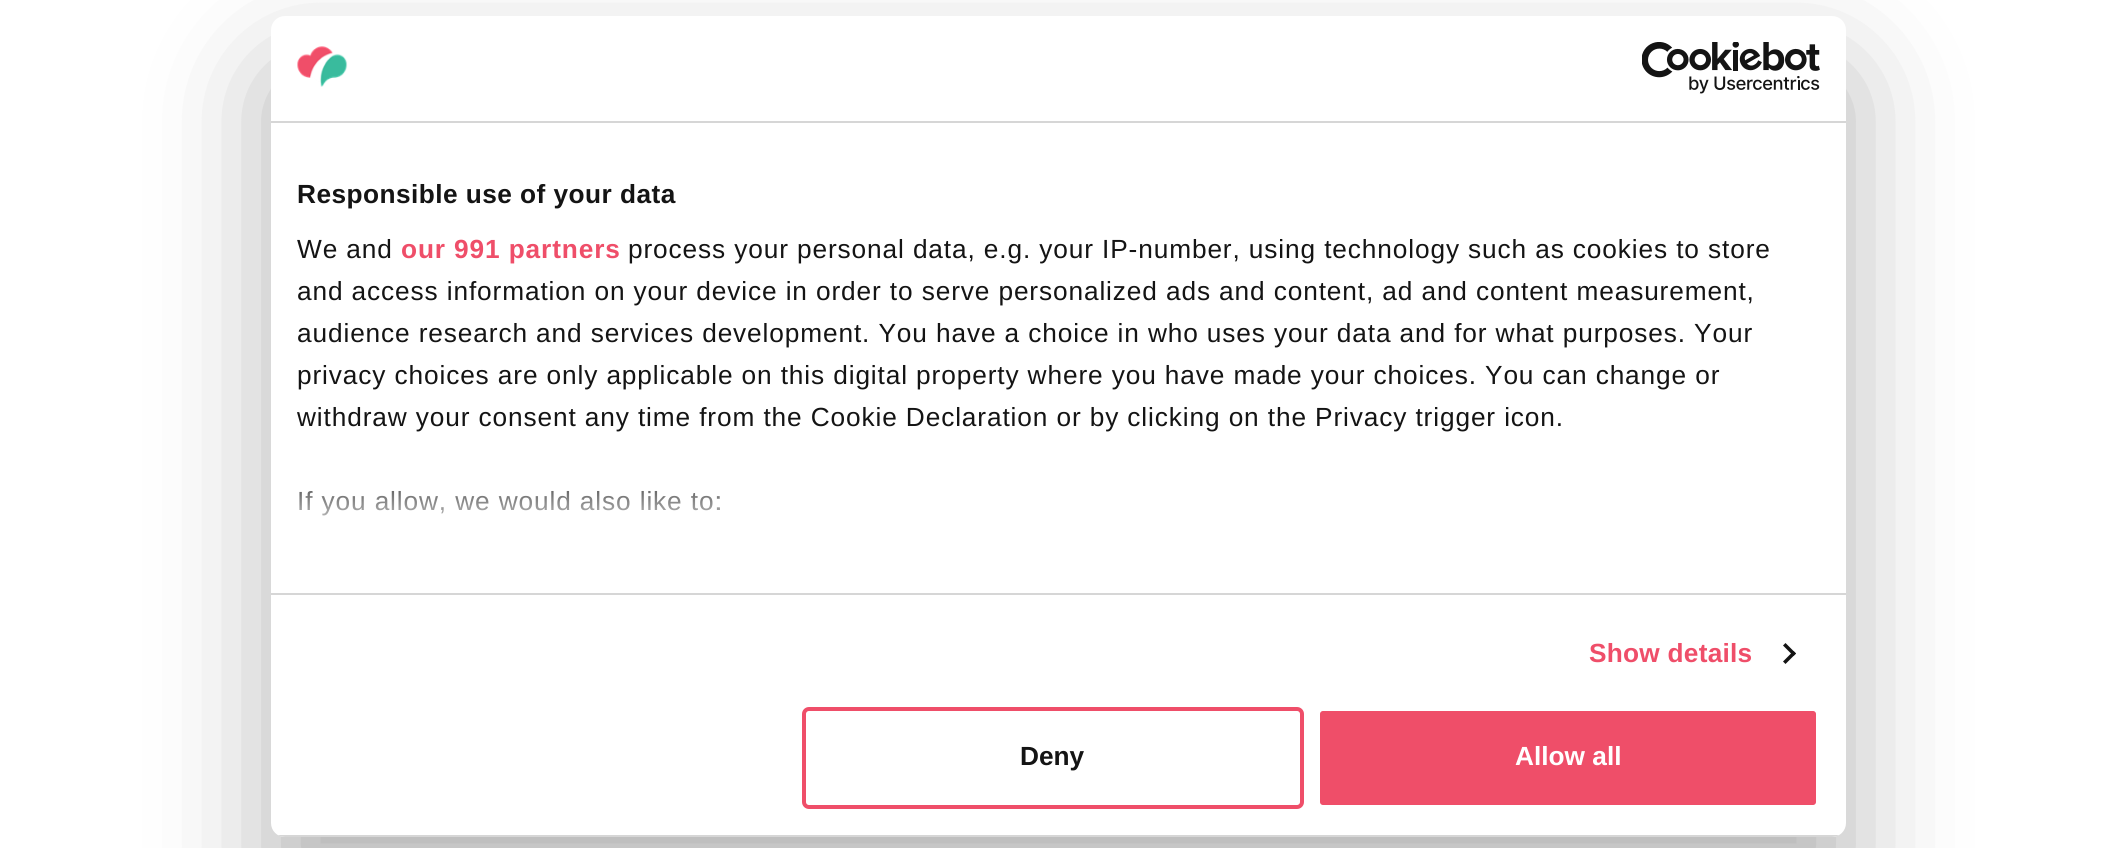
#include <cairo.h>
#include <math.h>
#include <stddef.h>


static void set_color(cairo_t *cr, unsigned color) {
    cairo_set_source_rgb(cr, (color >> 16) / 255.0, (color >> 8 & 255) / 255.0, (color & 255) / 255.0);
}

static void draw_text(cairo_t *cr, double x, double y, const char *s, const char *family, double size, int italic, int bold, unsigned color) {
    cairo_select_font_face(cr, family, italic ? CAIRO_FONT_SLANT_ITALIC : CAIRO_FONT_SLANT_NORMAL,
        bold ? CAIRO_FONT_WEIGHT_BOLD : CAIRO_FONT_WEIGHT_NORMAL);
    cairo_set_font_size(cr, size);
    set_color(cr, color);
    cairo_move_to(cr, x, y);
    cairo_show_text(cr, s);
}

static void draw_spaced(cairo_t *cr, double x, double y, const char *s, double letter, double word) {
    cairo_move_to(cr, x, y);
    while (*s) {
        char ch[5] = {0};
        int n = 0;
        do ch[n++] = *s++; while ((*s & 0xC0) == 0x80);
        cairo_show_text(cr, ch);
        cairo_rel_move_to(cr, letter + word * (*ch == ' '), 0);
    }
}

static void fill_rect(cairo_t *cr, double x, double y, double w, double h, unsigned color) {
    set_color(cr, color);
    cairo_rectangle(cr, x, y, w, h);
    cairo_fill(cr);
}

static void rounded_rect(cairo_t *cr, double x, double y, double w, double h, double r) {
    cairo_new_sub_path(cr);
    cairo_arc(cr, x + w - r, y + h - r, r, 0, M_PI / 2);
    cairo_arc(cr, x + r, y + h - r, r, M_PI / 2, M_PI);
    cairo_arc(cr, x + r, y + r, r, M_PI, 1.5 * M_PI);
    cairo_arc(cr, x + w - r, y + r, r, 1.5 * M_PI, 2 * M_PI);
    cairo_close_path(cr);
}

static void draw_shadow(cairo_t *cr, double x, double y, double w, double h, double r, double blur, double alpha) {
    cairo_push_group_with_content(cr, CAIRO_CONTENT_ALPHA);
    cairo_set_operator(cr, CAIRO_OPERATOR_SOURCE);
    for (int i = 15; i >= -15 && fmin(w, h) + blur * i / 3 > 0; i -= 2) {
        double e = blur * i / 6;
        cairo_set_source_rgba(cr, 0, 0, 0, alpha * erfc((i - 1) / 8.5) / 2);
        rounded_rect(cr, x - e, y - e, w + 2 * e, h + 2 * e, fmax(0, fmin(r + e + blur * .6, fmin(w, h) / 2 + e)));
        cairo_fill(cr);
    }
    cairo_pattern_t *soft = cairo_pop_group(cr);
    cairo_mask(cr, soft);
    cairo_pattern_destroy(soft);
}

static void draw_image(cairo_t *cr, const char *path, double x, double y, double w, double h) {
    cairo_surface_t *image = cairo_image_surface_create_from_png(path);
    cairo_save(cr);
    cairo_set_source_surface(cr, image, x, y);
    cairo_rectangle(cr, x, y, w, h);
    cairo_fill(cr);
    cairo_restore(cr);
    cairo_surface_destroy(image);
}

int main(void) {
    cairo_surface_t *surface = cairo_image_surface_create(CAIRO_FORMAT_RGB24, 2115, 848);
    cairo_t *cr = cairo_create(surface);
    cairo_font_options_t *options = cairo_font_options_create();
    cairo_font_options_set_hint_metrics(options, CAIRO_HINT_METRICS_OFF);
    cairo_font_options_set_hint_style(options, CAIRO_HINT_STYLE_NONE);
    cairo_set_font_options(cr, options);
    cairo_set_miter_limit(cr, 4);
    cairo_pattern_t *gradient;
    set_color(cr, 0xFFFFFF);
    cairo_paint(cr);
    set_color(cr, 0x000000);
    draw_shadow(cr, 271, 72, 1575, 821, 14, 59.5, 0.3);
    set_color(cr, 0xFFFFFF);
    rounded_rect(cr, 271, 16, 1575, 821, 14);
    cairo_fill(cr);
    fill_rect(cr, 271, 121, 1575, 2, 0xD6D6D6);
    draw_image(cr, "assets/img1.png", 297, 46, 51, 41);
    draw_image(cr, "assets/img2.png", 1642, 42, 178, 52);
    fill_rect(cr, 271, 593, 1575, 2, 0xD6D6D6);
    cairo_select_font_face(cr, "Liberation Sans", CAIRO_FONT_SLANT_NORMAL, CAIRO_FONT_WEIGHT_BOLD);
    cairo_set_font_size(cr, 26.25);
    set_color(cr, 0x141414);
    draw_spaced(cr, 297, 203, "Responsible use of your data", 0.45, 0);
    cairo_select_font_face(cr, "Liberation Sans", CAIRO_FONT_SLANT_NORMAL, CAIRO_FONT_WEIGHT_NORMAL);
    draw_spaced(cr, 297, 258, "We and", 0.88, 0);
    cairo_select_font_face(cr, "Liberation Sans", CAIRO_FONT_SLANT_NORMAL, CAIRO_FONT_WEIGHT_BOLD);
    set_color(cr, 0xEF4E69);
    draw_spaced(cr, 401, 258, "our 991 partners", 0.88, 0);
    cairo_select_font_face(cr, "Liberation Sans", CAIRO_FONT_SLANT_NORMAL, CAIRO_FONT_WEIGHT_NORMAL);
    set_color(cr, 0x141414);
    draw_spaced(cr, 628, 258, "process your personal data, e.g. your IP-number, using technology such as cookies to store", 0.88, 0);
    draw_spaced(cr, 297, 300, "and access information on your device in order to serve personalized ads and content, ad and content measurement,", 0.88, 0);
    draw_spaced(cr, 297, 342, "audience research and services development. You have a choice in who uses your data and for what purposes. Your", 0.88, 0);
    draw_spaced(cr, 297, 384, "privacy choices are only applicable on this digital property where you have made your choices. You can change or", 0.88, 0);
    draw_spaced(cr, 297, 426, "withdraw your consent any time from the Cookie Declaration or by clicking on the Privacy trigger icon.", 0.88, 0);
    draw_spaced(cr, 297, 510, "If you allow, we would also like to:", 0.88, 0);
    gradient = cairo_pattern_create_linear(1047, 592, 1047, 461);
    cairo_pattern_add_color_stop_rgba(gradient, 0, 1, 1, 1, 1);
    cairo_pattern_add_color_stop_rgba(gradient, 0.5, 1, 1, 1, 0.8);
    cairo_pattern_add_color_stop_rgba(gradient, 1, 1, 1, 1, 0);
    cairo_set_source(cr, gradient);
    cairo_pattern_destroy(gradient);
    cairo_rectangle(cr, 299, 491, 420, 25);
    cairo_fill(cr);
    cairo_select_font_face(cr, "Liberation Sans", CAIRO_FONT_SLANT_NORMAL, CAIRO_FONT_WEIGHT_BOLD);
    set_color(cr, 0xEF4E69);
    draw_spaced(cr, 1589, 662, "Show details", 0.25, 0);
    set_color(cr, 0x141414);
    cairo_new_path(cr);
    cairo_move_to(cr, 1785.5, 643);
    cairo_line_to(cr, 1796, 653.5);
    cairo_line_to(cr, 1793.5, 656);
    cairo_line_to(cr, 1783, 645.5);
    cairo_close_path(cr);
    cairo_fill(cr);
    cairo_new_path(cr);
    cairo_move_to(cr, 1793.5, 651);
    cairo_line_to(cr, 1796, 653.5);
    cairo_line_to(cr, 1785.5, 664);
    cairo_line_to(cr, 1783, 661.5);
    cairo_close_path(cr);
    cairo_fill(cr);
    cairo_save(cr);
    rounded_rect(cr, 271, 16, 1575, 821, 14);
    cairo_clip(cr);
    fill_rect(cr, 271, 835, 1575, 2, 0xD6D6D6);
    cairo_restore(cr);
    rounded_rect(cr, 804, 709, 498, 98, 5);
    set_color(cr, 0xEF4E69);
    cairo_set_line_width(cr, 4);
    cairo_stroke(cr);
    draw_text(cr, 1020, 765, "Deny", "Liberation Sans", 26.25, 0, 1, 0x141414);
    set_color(cr, 0xEF4E69);
    rounded_rect(cr, 1318, 709, 500, 98, 5);
    cairo_fill_preserve(cr);
    set_color(cr, 0xFFFFFF);
    cairo_stroke(cr);
    draw_text(cr, 1515, 765, "Allow all", "Liberation Sans", 26.25, 0, 1, 0xFFFFFF);
    cairo_surface_write_to_png(surface, "output.png");
    cairo_font_options_destroy(options);
    cairo_destroy(cr);
    cairo_surface_destroy(surface);
    return 0;
}
